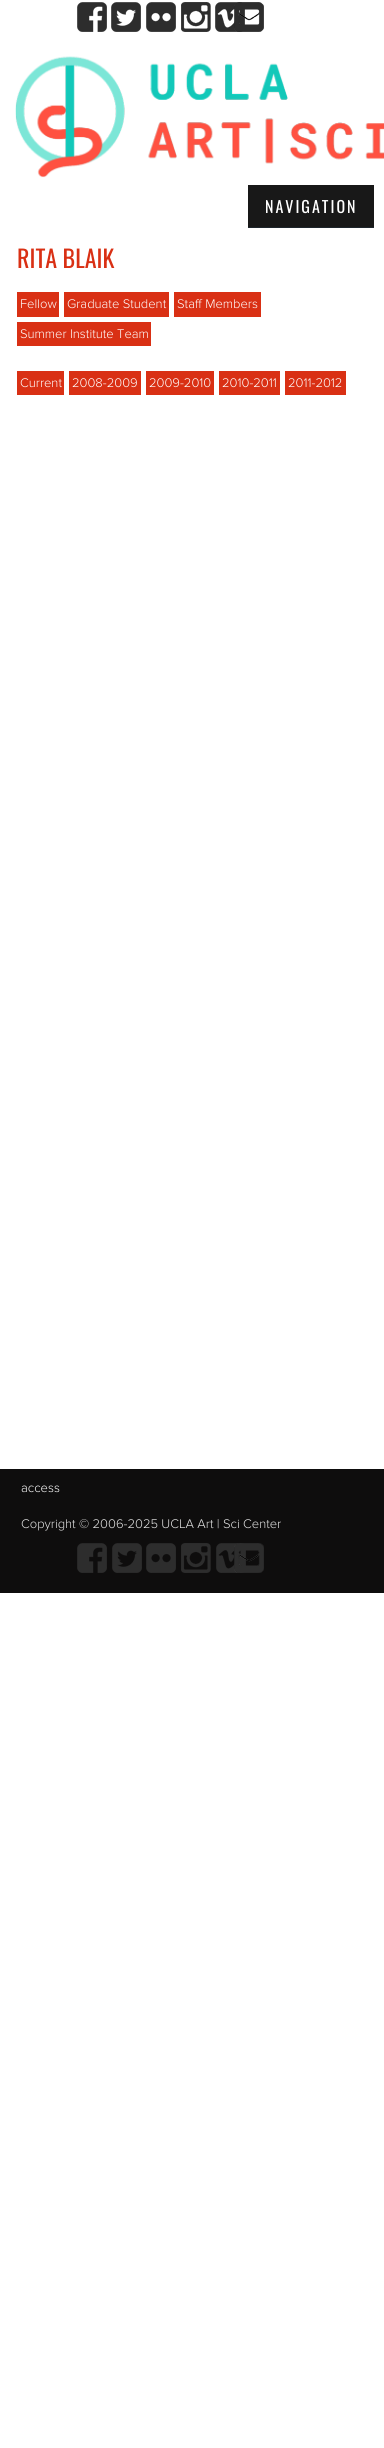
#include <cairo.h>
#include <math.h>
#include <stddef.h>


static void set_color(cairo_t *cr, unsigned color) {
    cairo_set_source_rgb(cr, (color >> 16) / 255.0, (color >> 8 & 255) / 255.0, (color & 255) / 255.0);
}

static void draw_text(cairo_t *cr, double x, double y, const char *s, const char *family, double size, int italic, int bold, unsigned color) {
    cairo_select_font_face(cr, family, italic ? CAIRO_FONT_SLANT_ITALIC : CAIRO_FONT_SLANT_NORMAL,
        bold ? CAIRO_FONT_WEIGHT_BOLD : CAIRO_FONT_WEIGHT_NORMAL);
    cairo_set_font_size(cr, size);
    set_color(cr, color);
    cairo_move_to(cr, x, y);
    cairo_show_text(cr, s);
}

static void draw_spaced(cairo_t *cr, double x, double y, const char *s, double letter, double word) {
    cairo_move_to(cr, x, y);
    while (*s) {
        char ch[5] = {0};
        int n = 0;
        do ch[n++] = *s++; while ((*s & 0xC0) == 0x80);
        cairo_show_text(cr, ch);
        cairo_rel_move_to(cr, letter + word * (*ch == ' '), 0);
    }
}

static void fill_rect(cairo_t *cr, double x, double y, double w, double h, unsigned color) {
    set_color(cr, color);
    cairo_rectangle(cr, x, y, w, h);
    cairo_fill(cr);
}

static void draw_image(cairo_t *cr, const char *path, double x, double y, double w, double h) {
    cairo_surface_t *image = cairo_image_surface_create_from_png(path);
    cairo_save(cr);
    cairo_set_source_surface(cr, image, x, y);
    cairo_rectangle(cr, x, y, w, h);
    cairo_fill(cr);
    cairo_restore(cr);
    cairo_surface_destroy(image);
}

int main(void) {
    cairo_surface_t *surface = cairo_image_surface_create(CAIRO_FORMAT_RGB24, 384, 2448);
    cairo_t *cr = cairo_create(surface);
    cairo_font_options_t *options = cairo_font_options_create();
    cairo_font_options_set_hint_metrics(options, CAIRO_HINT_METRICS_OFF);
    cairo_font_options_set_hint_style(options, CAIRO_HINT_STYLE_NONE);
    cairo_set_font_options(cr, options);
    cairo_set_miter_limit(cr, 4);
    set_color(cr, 0xFFFFFF);
    cairo_paint(cr);
    draw_image(cr, "assets/img1.png", 77, 2, 30, 30);
    draw_image(cr, "assets/img2.png", 111, 2, 30, 30);
    draw_image(cr, "assets/img3.png", 146, 2, 30, 30);
    draw_image(cr, "assets/img4.png", 181, 2, 30, 30);
    draw_image(cr, "assets/img5.png", 215, 2, 30, 30);
    draw_image(cr, "assets/img6.png", 234, 2, 30, 30);
    draw_image(cr, "assets/img7.png", 15, 56, 369, 122);
    fill_rect(cr, 248, 185, 126, 42, 0x181818);
    fill_rect(cr, 248, 227, 126, 1, 0x1E262D);
    cairo_select_font_face(cr, "Oswald", CAIRO_FONT_SLANT_NORMAL, CAIRO_FONT_WEIGHT_NORMAL);
    cairo_set_font_size(cr, 16);
    set_color(cr, 0xFFFFFF);
    draw_spaced(cr, 265, 213, "NAVIGATION", 2, 0);
    draw_text(cr, 17, 268, "RITA BLAIK", "Oswald", 24, 0, 0, 0xD93014);
    fill_rect(cr, 17, 292, 42, 25, 0xD93014);
    draw_text(cr, 20, 308, "Fellow", "Proxima Nova Light", 13, 0, 0, 0xFFFFFF);
    fill_rect(cr, 64, 292, 105, 25, 0xD93014);
    draw_text(cr, 67, 308, "Graduate Student", "Proxima Nova Light", 13, 0, 0, 0xFFFFFF);
    fill_rect(cr, 174, 292, 87, 25, 0xD93014);
    draw_text(cr, 177, 308, "Staff Members", "Proxima Nova Light", 13, 0, 0, 0xFFFFFF);
    fill_rect(cr, 17, 322, 134, 24, 0xD93014);
    draw_text(cr, 20, 338, "Summer Institute Team", "Proxima Nova Light", 13, 0, 0, 0xFFFFFF);
    fill_rect(cr, 17, 371, 47, 24, 0xD93014);
    draw_text(cr, 20, 387, "Current", "Proxima Nova Light", 13, 0, 0, 0xFFFFFF);
    fill_rect(cr, 69, 371, 72, 24, 0xD93014);
    draw_text(cr, 72, 387, "2008-2009", "Proxima Nova Light", 13, 0, 0, 0xFFFFFF);
    fill_rect(cr, 146, 371, 68, 24, 0xD93014);
    draw_text(cr, 149, 387, "2009-2010", "Proxima Nova Light", 13, 0, 0, 0xFFFFFF);
    fill_rect(cr, 219, 371, 61, 24, 0xD93014);
    draw_text(cr, 222, 387, "2010-2011", "Proxima Nova Light", 13, 0, 0, 0xFFFFFF);
    fill_rect(cr, 285, 371, 61, 24, 0xD93014);
    draw_text(cr, 288, 387, "2011-2012", "Proxima Nova Light", 13, 0, 0, 0xFFFFFF);
    fill_rect(cr, 0, 1469, 384, 124, 0x0E0D0D);
    draw_text(cr, 21, 1492, "access", "Proxima Nova Light", 13, 0, 0, 0xFFFFFF);
    draw_text(cr, 21, 1528, "Copyright © 2006-2025 UCLA Art | Sci Center", "Proxima Nova Light", 13, 0, 0, 0xE6E6E6);
    draw_image(cr, "assets/img8.png", 77, 1543, 30, 30);
    draw_image(cr, "assets/img9.png", 112, 1543, 30, 30);
    draw_image(cr, "assets/img10.png", 146, 1543, 30, 30);
    draw_image(cr, "assets/img11.png", 181, 1543, 30, 30);
    draw_image(cr, "assets/img12.png", 216, 1543, 30, 30);
    draw_image(cr, "assets/img13.png", 234, 1543, 30, 30);
    cairo_surface_write_to_png(surface, "output.png");
    cairo_font_options_destroy(options);
    cairo_destroy(cr);
    cairo_surface_destroy(surface);
    return 0;
}
